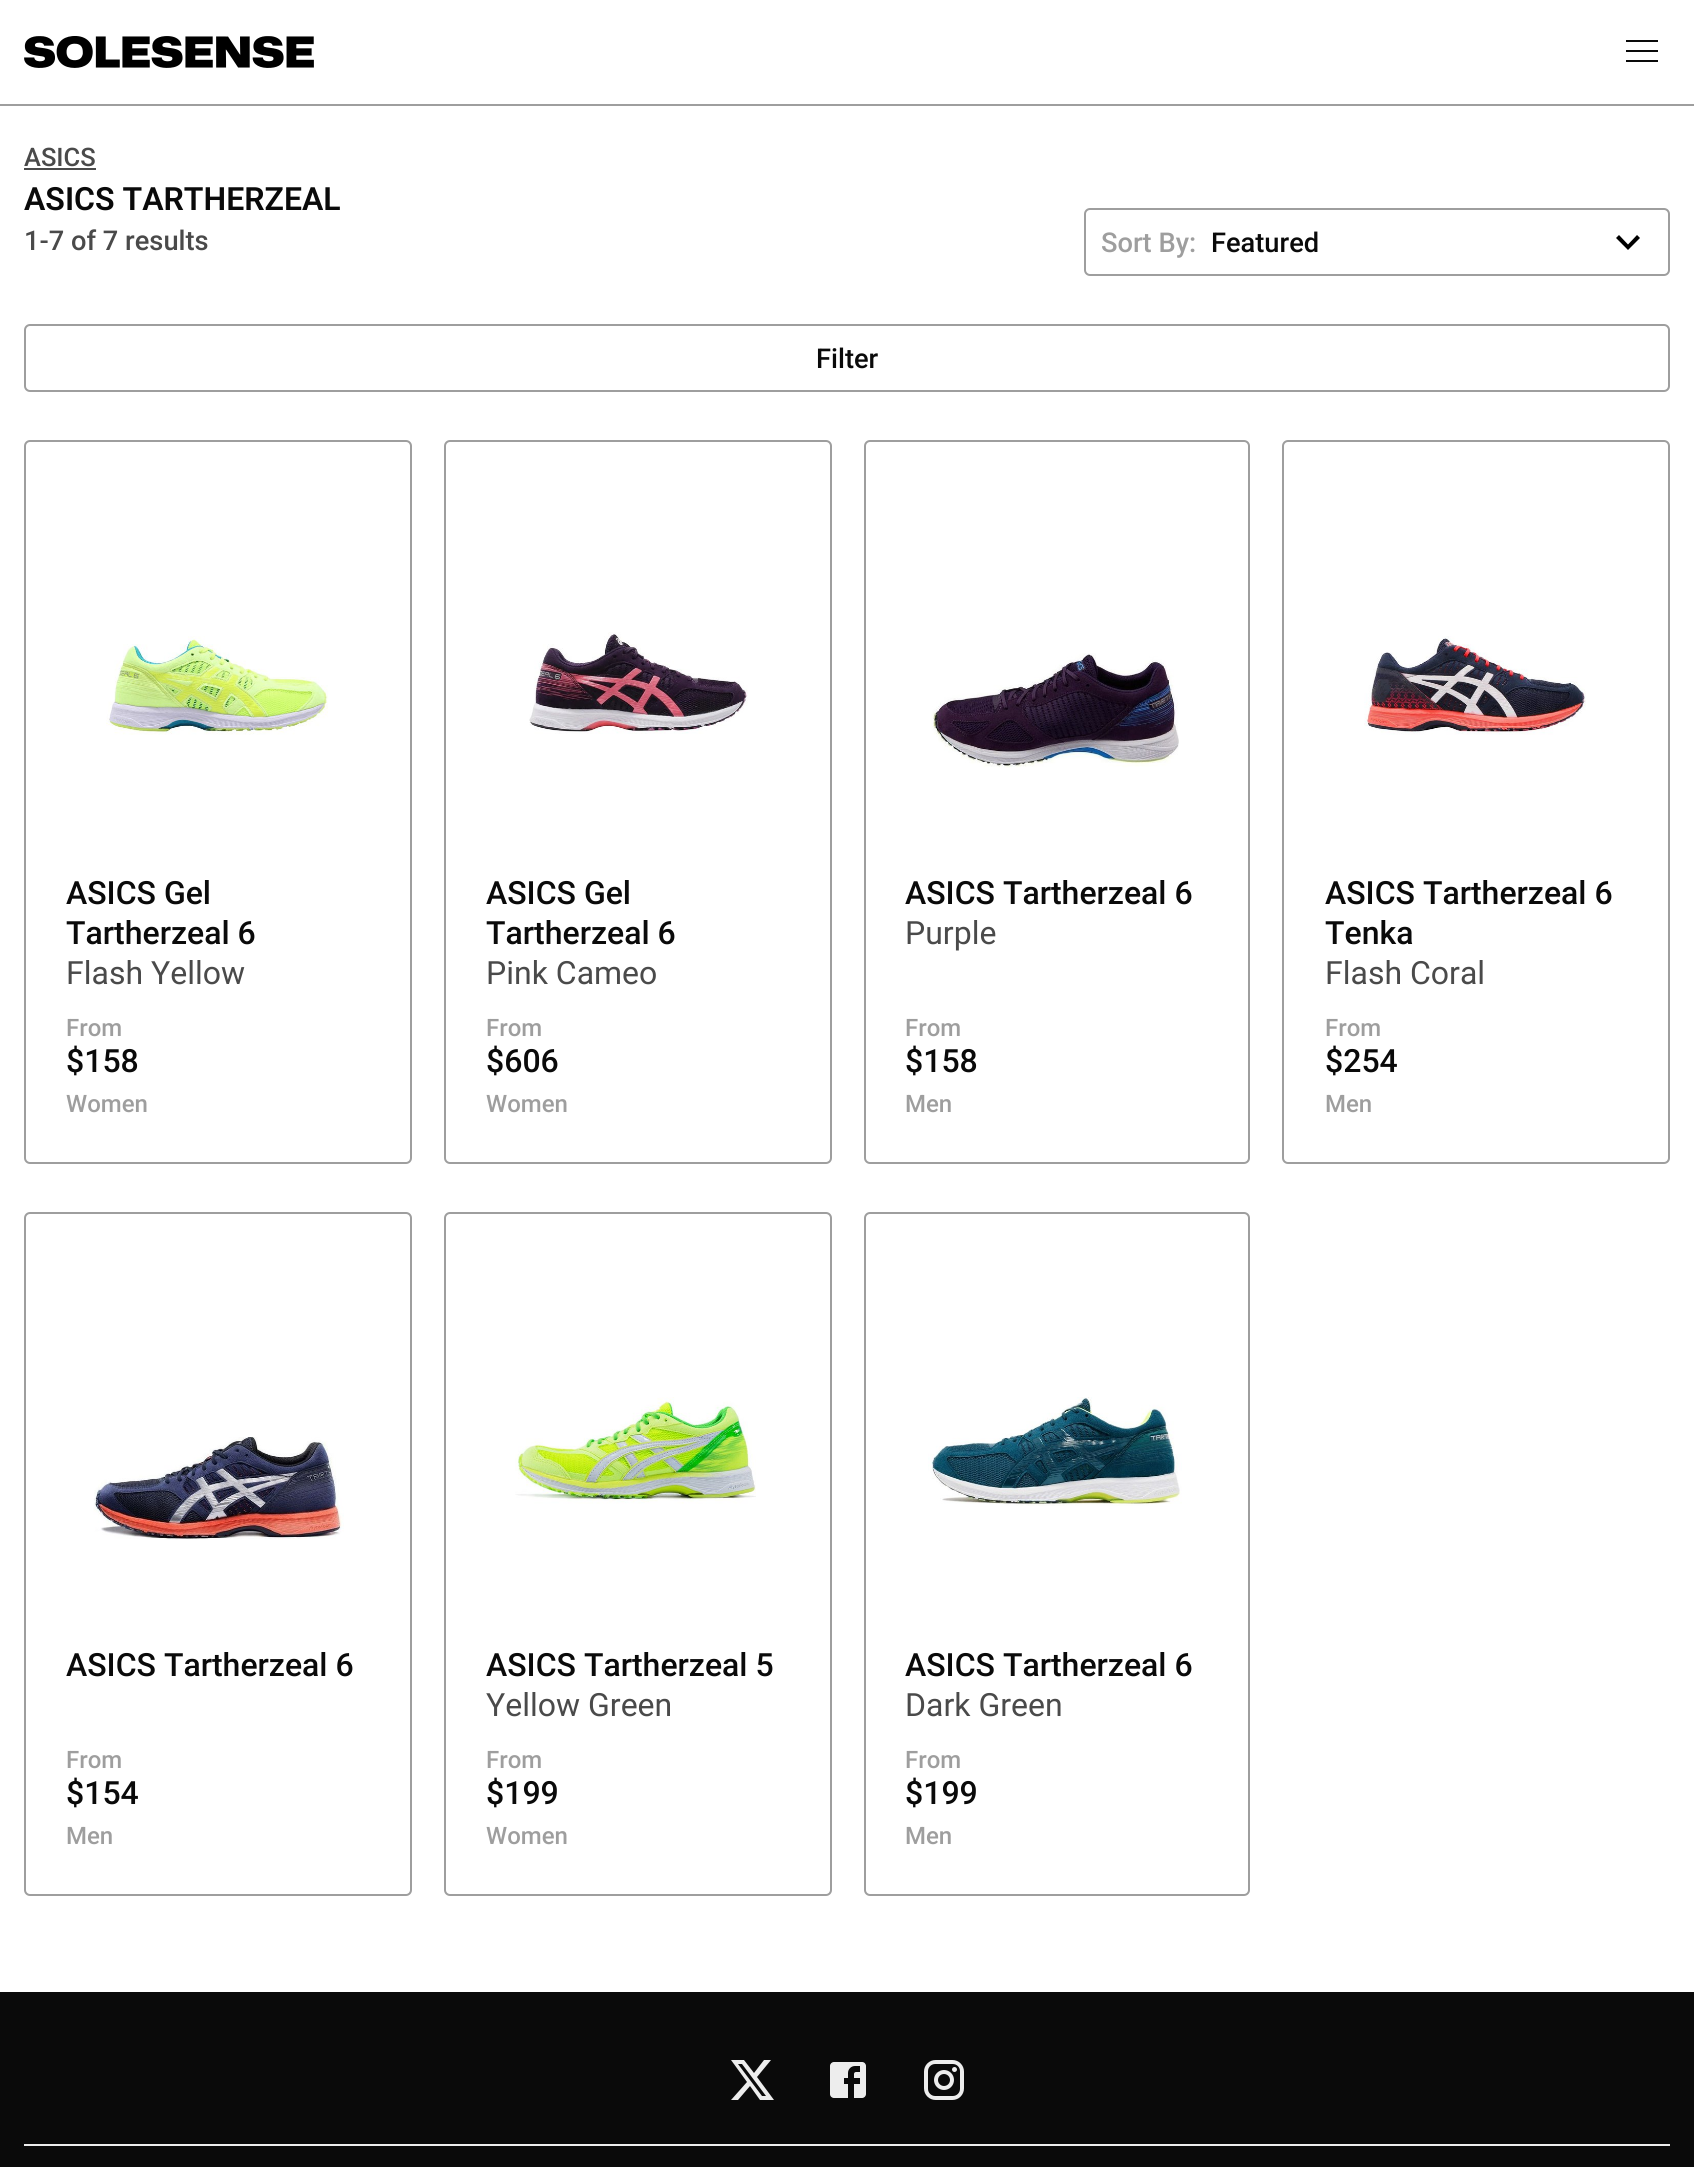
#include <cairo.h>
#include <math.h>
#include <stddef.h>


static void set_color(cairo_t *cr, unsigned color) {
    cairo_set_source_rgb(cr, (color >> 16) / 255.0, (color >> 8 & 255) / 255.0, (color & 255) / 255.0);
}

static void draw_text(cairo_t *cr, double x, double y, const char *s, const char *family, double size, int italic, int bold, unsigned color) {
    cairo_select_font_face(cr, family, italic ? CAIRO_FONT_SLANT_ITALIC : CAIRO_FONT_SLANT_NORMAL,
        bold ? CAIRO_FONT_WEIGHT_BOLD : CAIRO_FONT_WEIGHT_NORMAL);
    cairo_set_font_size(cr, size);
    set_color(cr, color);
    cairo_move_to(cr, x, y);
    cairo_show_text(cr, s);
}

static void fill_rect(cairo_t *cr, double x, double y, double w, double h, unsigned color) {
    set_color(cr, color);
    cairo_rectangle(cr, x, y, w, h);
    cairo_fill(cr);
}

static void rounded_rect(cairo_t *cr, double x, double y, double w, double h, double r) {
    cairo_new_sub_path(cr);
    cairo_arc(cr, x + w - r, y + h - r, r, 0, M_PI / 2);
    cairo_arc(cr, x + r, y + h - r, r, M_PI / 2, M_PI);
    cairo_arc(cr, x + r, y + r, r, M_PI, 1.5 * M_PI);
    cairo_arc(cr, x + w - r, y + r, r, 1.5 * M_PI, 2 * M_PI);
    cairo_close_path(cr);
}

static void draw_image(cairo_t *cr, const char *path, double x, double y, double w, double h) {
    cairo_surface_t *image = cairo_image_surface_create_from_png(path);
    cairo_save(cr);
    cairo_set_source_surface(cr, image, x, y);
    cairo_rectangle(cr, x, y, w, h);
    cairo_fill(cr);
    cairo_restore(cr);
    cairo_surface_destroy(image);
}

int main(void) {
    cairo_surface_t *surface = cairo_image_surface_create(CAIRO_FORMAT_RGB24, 1694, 2167);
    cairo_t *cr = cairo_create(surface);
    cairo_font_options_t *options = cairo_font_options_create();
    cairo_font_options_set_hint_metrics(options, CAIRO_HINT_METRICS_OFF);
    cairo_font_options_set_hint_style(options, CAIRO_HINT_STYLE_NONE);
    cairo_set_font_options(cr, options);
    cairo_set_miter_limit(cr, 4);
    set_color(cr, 0xFFFFFF);
    cairo_paint(cr);
    fill_rect(cr, 0, 104, 1694, 2, 0x9E9E9E);
    draw_image(cr, "assets/img1.png", 24, 36, 290, 32);
    fill_rect(cr, 1626, 40, 32, 2, 0x0A0A0A);
    fill_rect(cr, 1626, 50, 32, 2, 0x0A0A0A);
    fill_rect(cr, 1626, 60, 32, 2, 0x0A0A0A);
    draw_text(cr, 24, 166, "ASICS", "Roboto Medium", 25.5, 0, 0, 0x4A4A4A);
    fill_rect(cr, 24, 168, 72, 2, 0x4A4A4A);
    draw_text(cr, 24, 210, "ASICS TARTHERZEAL", "Roboto SemiBold", 32, 0, 0, 0x0A0A0A);
    draw_text(cr, 24, 250, "1-7 of 7 results", "Roboto Medium", 27.25, 0, 0, 0x4A4A4A);
    rounded_rect(cr, 1085, 209, 584, 66, 5);
    set_color(cr, 0x9E9E9E);
    cairo_stroke(cr);
    draw_text(cr, 1101, 252, "Sort By:", "Roboto Medium", 27.25, 0, 0, 0x9E9E9E);
    draw_text(cr, 1211, 252, "Featured", "Roboto Medium", 27.25, 0, 0, 0x0A0A0A);
    set_color(cr, 0x000000);
    cairo_new_path(cr);
    cairo_move_to(cr, 1619, 235);
    cairo_line_to(cr, 1628, 244.5);
    cairo_line_to(cr, 1637, 235);
    cairo_line_to(cr, 1640, 238);
    cairo_line_to(cr, 1628, 250);
    cairo_line_to(cr, 1616, 238);
    cairo_close_path(cr);
    cairo_fill(cr);
    rounded_rect(cr, 25, 325, 1644, 66, 5);
    set_color(cr, 0x9E9E9E);
    cairo_stroke(cr);
    draw_text(cr, 816, 368, "Filter", "Roboto Medium", 27.25, 0, 0, 0x0A0A0A);
    rounded_rect(cr, 25, 441, 386, 722, 5);
    set_color(cr, 0x9E9E9E);
    cairo_stroke(cr);
    draw_image(cr, "assets/img2.png", 106, 636, 222, 99);
    draw_text(cr, 66, 904, "ASICS Gel", "Roboto Medium", 32, 0, 0, 0x0A0A0A);
    draw_text(cr, 66, 944, "Tartherzeal 6", "Roboto Medium", 32, 0, 0, 0x0A0A0A);
    draw_text(cr, 66, 984, "Flash Yellow", "Roboto", 32, 0, 0, 0x4A4A4A);
    draw_text(cr, 66, 1036, "From", "Roboto Medium", 24, 0, 0, 0x9E9E9E);
    draw_text(cr, 66, 1072, "$158", "Roboto Medium", 32, 0, 0, 0x0A0A0A);
    draw_text(cr, 66, 1112, "Women", "Roboto Medium", 24, 0, 0, 0x9E9E9E);
    rounded_rect(cr, 445, 441, 386, 722, 5);
    cairo_stroke(cr);
    draw_image(cr, "assets/img3.png", 529, 632, 219, 102);
    draw_text(cr, 486, 904, "ASICS Gel", "Roboto Medium", 32, 0, 0, 0x0A0A0A);
    draw_text(cr, 486, 944, "Tartherzeal 6", "Roboto Medium", 32, 0, 0, 0x0A0A0A);
    draw_text(cr, 486, 984, "Pink Cameo", "Roboto", 32, 0, 0, 0x4A4A4A);
    draw_text(cr, 486, 1036, "From", "Roboto Medium", 24, 0, 0, 0x9E9E9E);
    draw_text(cr, 486, 1072, "$606", "Roboto Medium", 32, 0, 0, 0x0A0A0A);
    draw_text(cr, 486, 1112, "Women", "Roboto Medium", 24, 0, 0, 0x9E9E9E);
    rounded_rect(cr, 865, 441, 384, 722, 5);
    cairo_stroke(cr);
    draw_image(cr, "assets/img4.png", 930, 653, 249, 115);
    draw_text(cr, 905, 904, "ASICS Tartherzeal 6", "Roboto Medium", 32, 0, 0, 0x0A0A0A);
    draw_text(cr, 905, 944, "Purple", "Roboto", 32, 0, 0, 0x4A4A4A);
    draw_text(cr, 905, 1036, "From", "Roboto Medium", 24, 0, 0, 0x9E9E9E);
    draw_text(cr, 905, 1072, "$158", "Roboto Medium", 32, 0, 0, 0x0A0A0A);
    draw_text(cr, 905, 1112, "Men", "Roboto Medium", 24, 0, 0, 0x9E9E9E);
    rounded_rect(cr, 1283, 441, 386, 722, 5);
    cairo_stroke(cr);
    draw_image(cr, "assets/img5.png", 1364, 636, 222, 99);
    draw_text(cr, 1325, 904, "ASICS Tartherzeal 6", "Roboto Medium", 32, 0, 0, 0x0A0A0A);
    draw_text(cr, 1325, 944, "Tenka", "Roboto Medium", 32, 0, 0, 0x0A0A0A);
    draw_text(cr, 1325, 984, "Flash Coral", "Roboto", 32, 0, 0, 0x4A4A4A);
    draw_text(cr, 1325, 1036, "From", "Roboto Medium", 24, 0, 0, 0x9E9E9E);
    draw_text(cr, 1325, 1072, "$254", "Roboto Medium", 32, 0, 0, 0x0A0A0A);
    draw_text(cr, 1325, 1112, "Men", "Roboto Medium", 24, 0, 0, 0x9E9E9E);
    rounded_rect(cr, 25, 1213, 386, 682, 5);
    cairo_stroke(cr);
    draw_image(cr, "assets/img6.png", 93, 1437, 251, 103);
    draw_text(cr, 66, 1676, "ASICS Tartherzeal 6", "Roboto Medium", 32, 0, 0, 0x0A0A0A);
    draw_text(cr, 66, 1768, "From", "Roboto Medium", 24, 0, 0, 0x9E9E9E);
    draw_text(cr, 66, 1804, "$154", "Roboto Medium", 32, 0, 0, 0x0A0A0A);
    draw_text(cr, 66, 1844, "Men", "Roboto Medium", 24, 0, 0, 0x9E9E9E);
    rounded_rect(cr, 445, 1213, 386, 682, 5);
    cairo_stroke(cr);
    draw_image(cr, "assets/img7.png", 515, 1397, 241, 107);
    draw_text(cr, 486, 1676, "ASICS Tartherzeal 5", "Roboto Medium", 32, 0, 0, 0x0A0A0A);
    draw_text(cr, 486, 1716, "Yellow Green", "Roboto", 32, 0, 0, 0x4A4A4A);
    draw_text(cr, 486, 1768, "From", "Roboto Medium", 24, 0, 0, 0x9E9E9E);
    draw_text(cr, 486, 1804, "$199", "Roboto Medium", 32, 0, 0, 0x0A0A0A);
    draw_text(cr, 486, 1844, "Women", "Roboto Medium", 24, 0, 0, 0x9E9E9E);
    rounded_rect(cr, 865, 1213, 384, 682, 5);
    cairo_stroke(cr);
    draw_image(cr, "assets/img8.png", 928, 1397, 254, 109);
    draw_text(cr, 905, 1676, "ASICS Tartherzeal 6", "Roboto Medium", 32, 0, 0, 0x0A0A0A);
    draw_text(cr, 905, 1716, "Dark Green", "Roboto", 32, 0, 0, 0x4A4A4A);
    draw_text(cr, 905, 1768, "From", "Roboto Medium", 24, 0, 0, 0x9E9E9E);
    draw_text(cr, 905, 1804, "$199", "Roboto Medium", 32, 0, 0, 0x0A0A0A);
    draw_text(cr, 905, 1844, "Men", "Roboto Medium", 24, 0, 0, 0x9E9E9E);
    fill_rect(cr, 0, 1992, 1694, 175, 0x0A0A0A);
    fill_rect(cr, 24, 2144, 1646, 2, 0xEDEDED);
    cairo_new_path(cr);
    cairo_move_to(cr, 764, 2060);
    cairo_line_to(cr, 771, 2060);
    cairo_line_to(cr, 757, 2077);
    cairo_line_to(cr, 774, 2100);
    cairo_line_to(cr, 760, 2100);
    cairo_line_to(cr, 750, 2086);
    cairo_line_to(cr, 738, 2100);
    cairo_line_to(cr, 731, 2100);
    cairo_line_to(cr, 747, 2082);
    cairo_line_to(cr, 731, 2060);
    cairo_line_to(cr, 744, 2060);
    cairo_line_to(cr, 754, 2073);
    cairo_close_path(cr);
    cairo_move_to(cr, 762, 2096);
    cairo_line_to(cr, 766, 2096);
    cairo_line_to(cr, 742, 2064);
    cairo_line_to(cr, 738, 2064);
    cairo_close_path(cr);
    cairo_fill(cr);
    draw_image(cr, "assets/img9.png", 830, 2062, 36, 36);
    draw_image(cr, "assets/img10.png", 924, 2060, 40, 40);
    cairo_surface_write_to_png(surface, "output.png");
    cairo_font_options_destroy(options);
    cairo_destroy(cr);
    cairo_surface_destroy(surface);
    return 0;
}
